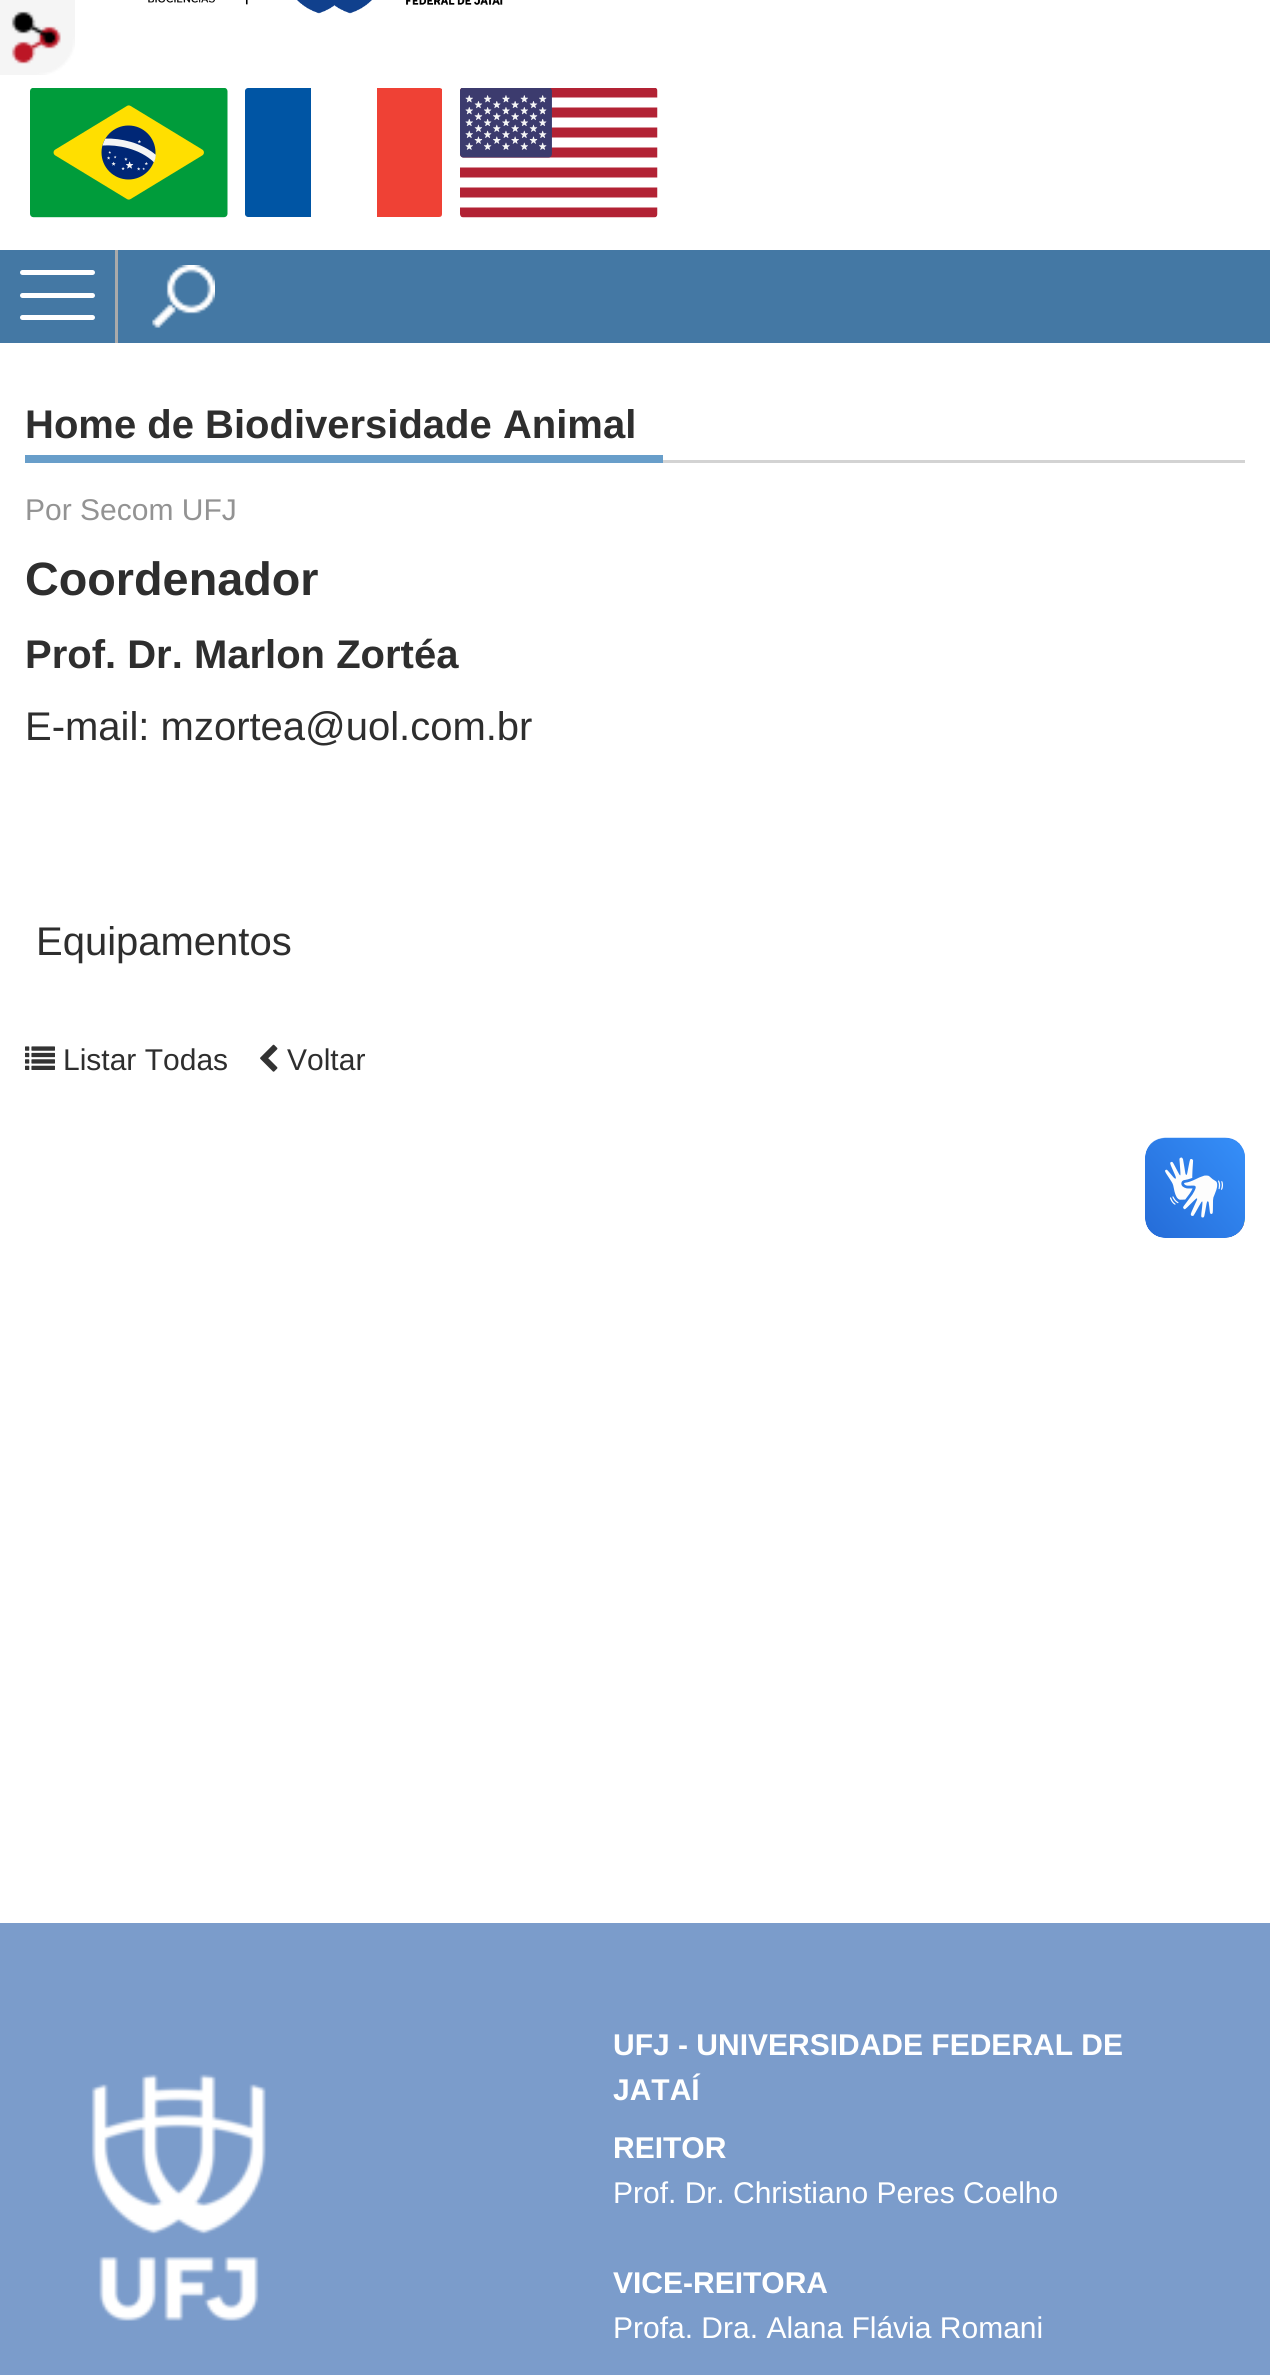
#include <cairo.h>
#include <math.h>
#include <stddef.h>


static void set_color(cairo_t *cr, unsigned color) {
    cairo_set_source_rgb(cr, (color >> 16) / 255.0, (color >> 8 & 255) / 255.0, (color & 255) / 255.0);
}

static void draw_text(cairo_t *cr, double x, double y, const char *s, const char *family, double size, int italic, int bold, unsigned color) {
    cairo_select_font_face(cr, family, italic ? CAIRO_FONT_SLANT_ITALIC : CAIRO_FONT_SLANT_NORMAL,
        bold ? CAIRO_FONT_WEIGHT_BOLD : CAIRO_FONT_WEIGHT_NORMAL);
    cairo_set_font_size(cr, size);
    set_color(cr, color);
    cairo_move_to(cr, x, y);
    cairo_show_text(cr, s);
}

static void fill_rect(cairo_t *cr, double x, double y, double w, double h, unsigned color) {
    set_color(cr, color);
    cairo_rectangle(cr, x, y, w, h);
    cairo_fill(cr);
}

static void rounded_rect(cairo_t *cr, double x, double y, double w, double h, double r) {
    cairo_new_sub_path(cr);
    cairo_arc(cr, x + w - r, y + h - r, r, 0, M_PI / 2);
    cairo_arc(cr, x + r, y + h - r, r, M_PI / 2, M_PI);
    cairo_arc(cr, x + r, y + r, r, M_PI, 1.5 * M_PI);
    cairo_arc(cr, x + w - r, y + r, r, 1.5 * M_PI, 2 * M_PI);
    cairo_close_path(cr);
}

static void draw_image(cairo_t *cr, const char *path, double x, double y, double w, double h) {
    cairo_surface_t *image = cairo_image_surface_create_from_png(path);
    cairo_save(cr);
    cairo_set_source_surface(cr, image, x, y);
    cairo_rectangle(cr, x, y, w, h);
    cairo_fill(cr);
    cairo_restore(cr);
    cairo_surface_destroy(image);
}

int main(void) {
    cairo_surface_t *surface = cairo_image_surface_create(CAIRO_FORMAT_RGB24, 1270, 2375);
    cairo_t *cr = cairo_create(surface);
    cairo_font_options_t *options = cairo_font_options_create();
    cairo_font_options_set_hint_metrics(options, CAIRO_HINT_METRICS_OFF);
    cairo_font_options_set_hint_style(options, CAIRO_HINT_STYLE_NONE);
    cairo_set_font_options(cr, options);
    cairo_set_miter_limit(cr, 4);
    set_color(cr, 0xFFFFFF);
    cairo_paint(cr);
    draw_image(cr, "assets/img1.png", 0, 0, 75, 75);
    draw_image(cr, "assets/img2.png", 148, 0, 355, 14);
    draw_image(cr, "assets/img3.png", 30, 88, 198, 130);
    set_color(cr, 0x0055A4);
    cairo_new_path(cr);
    cairo_move_to(cr, 311, 217);
    cairo_line_to(cr, 248, 217);
    cairo_curve_to(cr, 247, 217, 245, 216, 245, 214);
    cairo_line_to(cr, 245, 91);
    cairo_curve_to(cr, 245, 89, 247, 88, 248, 88);
    cairo_line_to(cr, 311, 88);
    cairo_close_path(cr);
    cairo_fill(cr);
    set_color(cr, 0xEF4135);
    cairo_new_path(cr);
    cairo_move_to(cr, 439, 217);
    cairo_line_to(cr, 377, 217);
    cairo_line_to(cr, 377, 88);
    cairo_line_to(cr, 440, 88);
    cairo_line_to(cr, 442, 89);
    cairo_line_to(cr, 442, 91);
    cairo_line_to(cr, 442, 214);
    cairo_curve_to(cr, 442, 216, 441, 217, 439, 217);
    cairo_close_path(cr);
    cairo_fill(cr);
    draw_image(cr, "assets/img4.png", 460, 88, 198, 130);
    fill_rect(cr, 0, 250, 1270, 93, 0x4478A4);
    fill_rect(cr, 115, 250, 3, 93, 0xAAAAAA);
    set_color(cr, 0xFFFFFF);
    rounded_rect(cr, 20, 293, 75, 5, 2.5);
    cairo_fill(cr);
    rounded_rect(cr, 20, 270, 75, 5, 2.5);
    cairo_fill(cr);
    rounded_rect(cr, 20, 315, 75, 5, 2.5);
    cairo_fill(cr);
    draw_image(cr, "assets/img5.png", 152, 265, 63, 63);
    fill_rect(cr, 663, 460, 582, 3, 0xD3D3D3);
    fill_rect(cr, 25, 455, 638, 8, 0x689ECA);
    draw_text(cr, 25, 438, "Home de Biodiversidade Animal", "Liberation Sans", 40, 0, 1, 0x2E2E2E);
    draw_text(cr, 25, 520, "Por Secom UFJ", "Liberation Sans", 30, 0, 0, 0x939393);
    draw_text(cr, 25, 595, "Coordenador", "Liberation Sans", 46.75, 0, 1, 0x2E2E2E);
    draw_text(cr, 25, 668, "Prof. Dr. Marlon Zortéa", "Liberation Sans", 40, 0, 1, 0x2E2E2E);
    draw_text(cr, 25, 740, "E-mail: mzortea@uol.com.br", "Liberation Sans", 40, 0, 0, 0x2E2E2E);
    draw_text(cr, 36, 955, "Equipamentos", "Liberation Sans", 40, 0, 0, 0x2E2E2E);
    draw_image(cr, "assets/img6.png", 25, 1046, 30, 24);
    draw_text(cr, 63, 1070, "Listar Todas", "Liberation Sans", 30, 0, 0, 0x2E2E2E);
    draw_image(cr, "assets/img7.png", 260, 1044, 18, 28);
    draw_text(cr, 287, 1070, "Voltar", "Liberation Sans", 30, 0, 0, 0x2E2E2E);
    draw_image(cr, "assets/img8.png", 1145, 1137, 100, 101);
    draw_image(cr, "assets/img9.png", 1145, 1138, 100, 100);
    fill_rect(cr, 0, 1923, 1270, 452, 0x7B9CCB);
    draw_image(cr, "assets/img10.png", 91, 2074, 175, 247);
    draw_text(cr, 613, 2055, "UFJ - UNIVERSIDADE FEDERAL DE", "Liberation Sans", 30, 0, 1, 0xFFFFFF);
    draw_text(cr, 613, 2100, "JATAÍ", "Liberation Sans", 30, 0, 1, 0xFFFFFF);
    draw_text(cr, 613, 2158, "REITOR", "Liberation Sans", 30, 0, 1, 0xFFFFFF);
    draw_text(cr, 613, 2203, "Prof. Dr. Christiano Peres Coelho", "Liberation Sans", 30, 0, 0, 0xFFFFFF);
    draw_text(cr, 613, 2293, "VICE-REITORA", "Liberation Sans", 30, 0, 1, 0xFFFFFF);
    draw_text(cr, 613, 2338, "Profa. Dra. Alana Flávia Romani", "Liberation Sans", 30, 0, 0, 0xFFFFFF);
    cairo_surface_write_to_png(surface, "output.png");
    cairo_font_options_destroy(options);
    cairo_destroy(cr);
    cairo_surface_destroy(surface);
    return 0;
}
